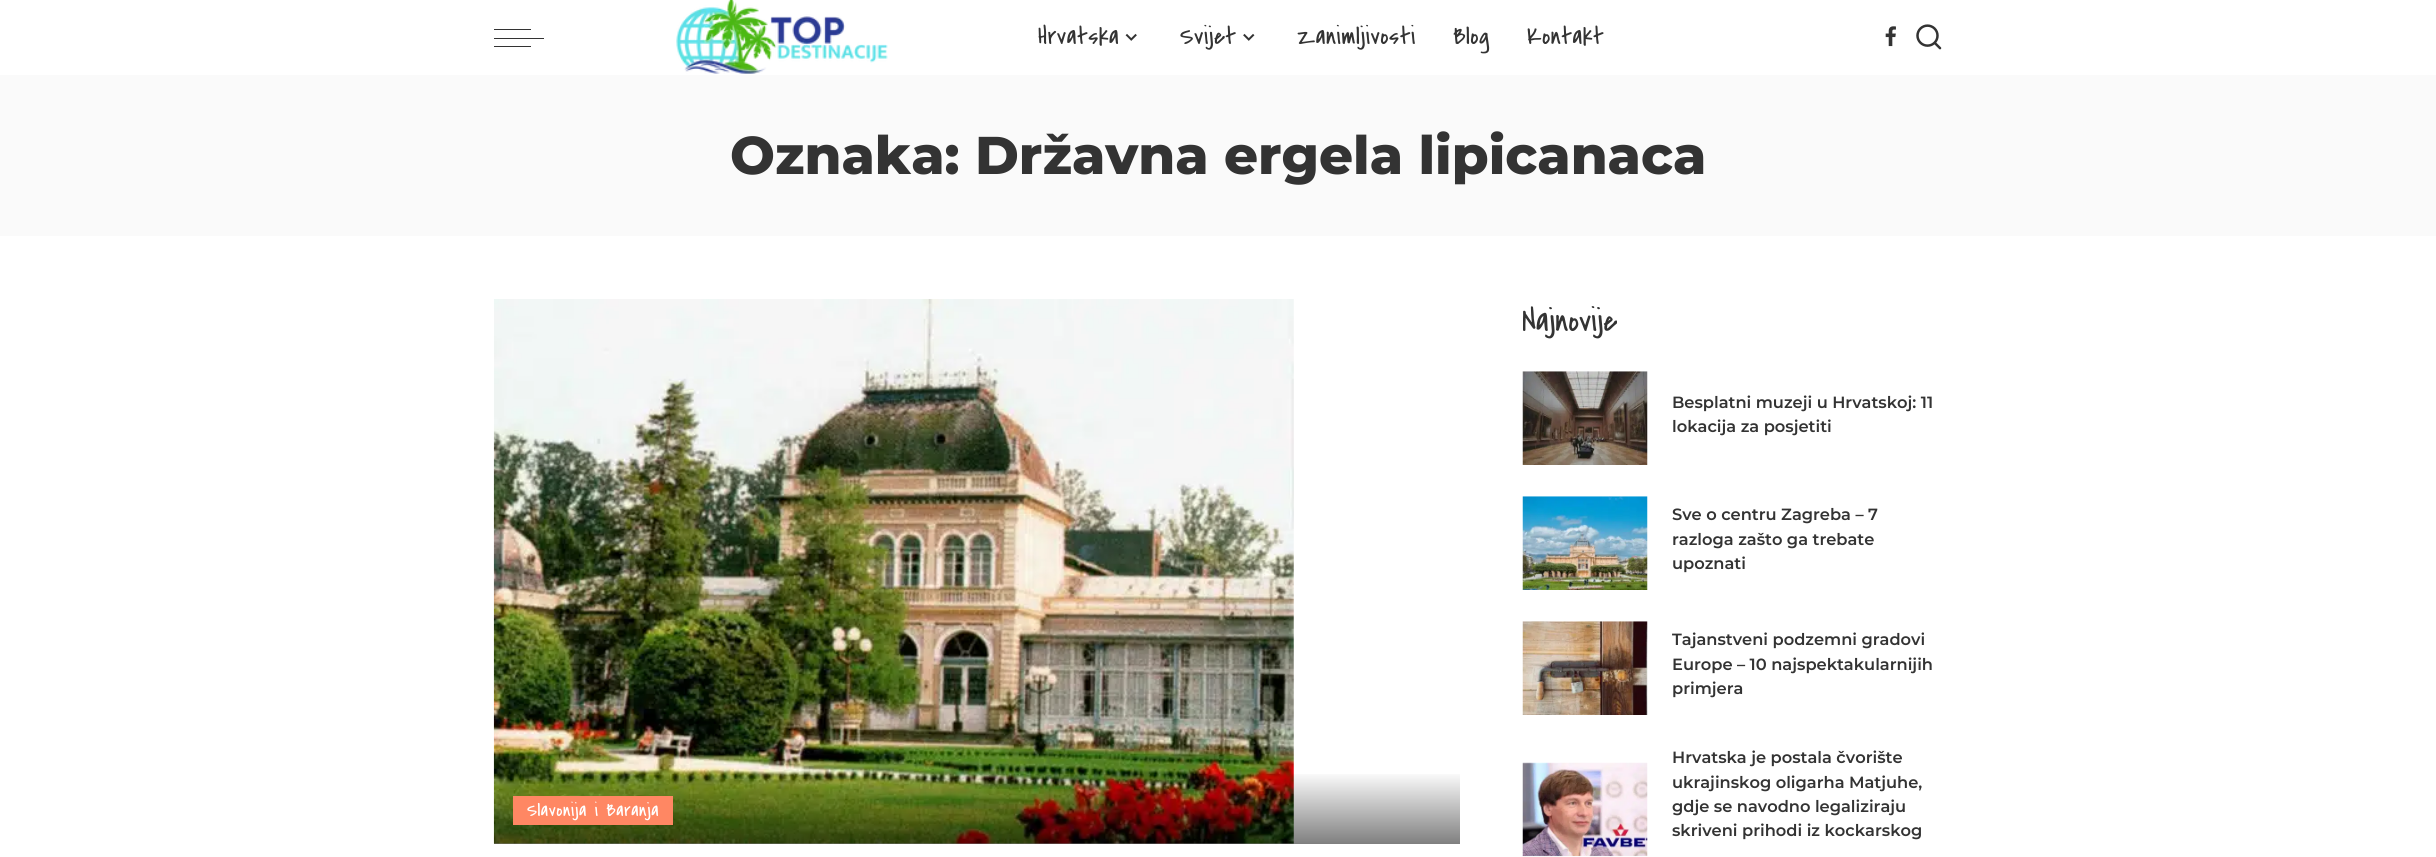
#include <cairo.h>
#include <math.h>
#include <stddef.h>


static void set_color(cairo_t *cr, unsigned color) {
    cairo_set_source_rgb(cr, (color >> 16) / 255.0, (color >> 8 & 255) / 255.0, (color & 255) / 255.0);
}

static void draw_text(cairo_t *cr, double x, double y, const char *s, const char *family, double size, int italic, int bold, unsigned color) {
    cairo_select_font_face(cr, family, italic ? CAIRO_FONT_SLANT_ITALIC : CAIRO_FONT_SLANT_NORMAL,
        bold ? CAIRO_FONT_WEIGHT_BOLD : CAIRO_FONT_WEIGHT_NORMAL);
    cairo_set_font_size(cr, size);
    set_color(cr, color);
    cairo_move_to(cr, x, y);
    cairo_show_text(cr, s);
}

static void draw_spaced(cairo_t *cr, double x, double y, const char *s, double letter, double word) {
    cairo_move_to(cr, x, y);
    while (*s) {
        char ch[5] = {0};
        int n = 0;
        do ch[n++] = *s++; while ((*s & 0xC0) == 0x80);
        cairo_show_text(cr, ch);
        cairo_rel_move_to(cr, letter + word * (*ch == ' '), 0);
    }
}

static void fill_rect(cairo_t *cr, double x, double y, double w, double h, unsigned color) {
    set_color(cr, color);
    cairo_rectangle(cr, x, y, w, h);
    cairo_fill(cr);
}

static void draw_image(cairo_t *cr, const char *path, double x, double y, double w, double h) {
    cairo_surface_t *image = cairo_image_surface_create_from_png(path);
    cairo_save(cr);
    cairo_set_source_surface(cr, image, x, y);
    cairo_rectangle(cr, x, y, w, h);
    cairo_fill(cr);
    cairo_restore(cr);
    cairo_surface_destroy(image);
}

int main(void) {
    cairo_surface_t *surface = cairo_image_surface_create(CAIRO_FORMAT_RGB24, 2436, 857);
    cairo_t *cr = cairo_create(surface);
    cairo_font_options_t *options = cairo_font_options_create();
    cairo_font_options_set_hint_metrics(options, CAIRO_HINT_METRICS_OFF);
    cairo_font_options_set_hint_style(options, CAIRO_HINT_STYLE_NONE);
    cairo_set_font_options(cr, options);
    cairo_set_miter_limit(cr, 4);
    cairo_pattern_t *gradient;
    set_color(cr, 0xFFFFFF);
    cairo_paint(cr);
    fill_rect(cr, 494, 38, 50, 1, 0x333333);
    fill_rect(cr, 494, 29, 37, 1, 0x333333);
    fill_rect(cr, 494, 46, 37, 1, 0x333333);
    draw_image(cr, "assets/img1.png", 676, 0, 212, 74);
    cairo_select_font_face(cr, "Covered By Your Grace", CAIRO_FONT_SLANT_NORMAL, CAIRO_FONT_WEIGHT_NORMAL);
    cairo_set_font_size(cr, 25);
    draw_spaced(cr, 1038, 44, "Hrvatska", 0.5, 0);
    draw_image(cr, "assets/img2.png", 1125, 33, 12, 8);
    draw_spaced(cr, 1180, 44, "Svijet", 0.5, 0);
    draw_image(cr, "assets/img3.png", 1243, 33, 12, 8);
    draw_spaced(cr, 1297, 44, "Zanimljivosti", 0.5, 0);
    draw_spaced(cr, 1453, 44, "Blog", 0.5, 0);
    draw_spaced(cr, 1527, 44, "Kontakt", 0.5, 0);
    draw_image(cr, "assets/img4.png", 1885, 26, 11, 21);
    draw_image(cr, "assets/img5.png", 1916, 24, 26, 26);
    fill_rect(cr, 0, 75, 2436, 161, 0xFAFAFA);
    draw_text(cr, 730, 174, "Oznaka: Državna ergela lipicanaca", "Montserrat ExtraBold", 53.1, 0, 0, 0x333333);
    draw_image(cr, "assets/img6.png", 493, 299, 801, 545);
    gradient = cairo_pattern_create_linear(977, 771, 977, 844);
    cairo_pattern_add_color_stop_rgba(gradient, 0, 0, 0, 0, 0);
    cairo_pattern_add_color_stop_rgba(gradient, 1, 0, 0, 0, 0.5);
    cairo_set_source(cr, gradient);
    cairo_pattern_destroy(gradient);
    cairo_rectangle(cr, 494, 774, 966, 70);
    cairo_fill(cr);
    fill_rect(cr, 513, 796, 160, 29, 0xFF8763);
    cairo_select_font_face(cr, "Covered By Your Grace", CAIRO_FONT_SLANT_NORMAL, CAIRO_FONT_WEIGHT_NORMAL);
    cairo_set_font_size(cr, 18.75);
    set_color(cr, 0xFFFFFF);
    draw_spaced(cr, 527, 816, "Slavonija i Baranja", 0.5, 0);
    cairo_save(cr);
    cairo_rectangle(cr, 1523, 299, 420, 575);
    cairo_clip(cr);
    draw_text(cr, 1522, 331, "Najnovije", "Covered By Your Grace", 32.5, 0, 0, 0x333333);
    cairo_restore(cr);
    draw_image(cr, "assets/img7.png", 1522, 371, 126, 94);
    draw_text(cr, 1672, 408, "Besplatni muzeji u Hrvatskoj: 11", "Montserrat SemiBold", 16.25, 0, 0, 0x333333);
    draw_text(cr, 1672, 432, "lokacija za posjetiti", "Montserrat SemiBold", 16.25, 0, 0, 0x333333);
    draw_image(cr, "assets/img8.png", 1522, 496, 126, 94);
    draw_text(cr, 1672, 520, "Sve o centru Zagreba – 7", "Montserrat SemiBold", 16.25, 0, 0, 0x333333);
    draw_text(cr, 1672, 545, "razloga zašto ga trebate", "Montserrat SemiBold", 16.25, 0, 0, 0x333333);
    draw_text(cr, 1672, 569, "upoznati", "Montserrat SemiBold", 16.25, 0, 0, 0x333333);
    draw_image(cr, "assets/img9.png", 1522, 621, 126, 94);
    draw_text(cr, 1672, 645, "Tajanstveni podzemni gradovi", "Montserrat SemiBold", 16.25, 0, 0, 0x333333);
    draw_text(cr, 1672, 670, "Europe – 10 najspektakularnijih", "Montserrat SemiBold", 16.25, 0, 0, 0x333333);
    draw_text(cr, 1672, 694, "primjera", "Montserrat SemiBold", 16.25, 0, 0, 0x333333);
    draw_image(cr, "assets/img10.png", 1522, 762, 126, 95);
    draw_text(cr, 1672, 763, "Hrvatska je postala čvorište", "Montserrat SemiBold", 16.25, 0, 0, 0x333333);
    draw_text(cr, 1672, 788, "ukrajinskog oligarha Matjuhe,", "Montserrat SemiBold", 16.25, 0, 0, 0x333333);
    draw_text(cr, 1672, 812, "gdje se navodno legaliziraju", "Montserrat SemiBold", 16.25, 0, 0, 0x333333);
    draw_text(cr, 1672, 836, "skriveni prihodi iz kockarskog", "Montserrat SemiBold", 16.25, 0, 0, 0x333333);
    cairo_surface_write_to_png(surface, "output.png");
    cairo_font_options_destroy(options);
    cairo_destroy(cr);
    cairo_surface_destroy(surface);
    return 0;
}
